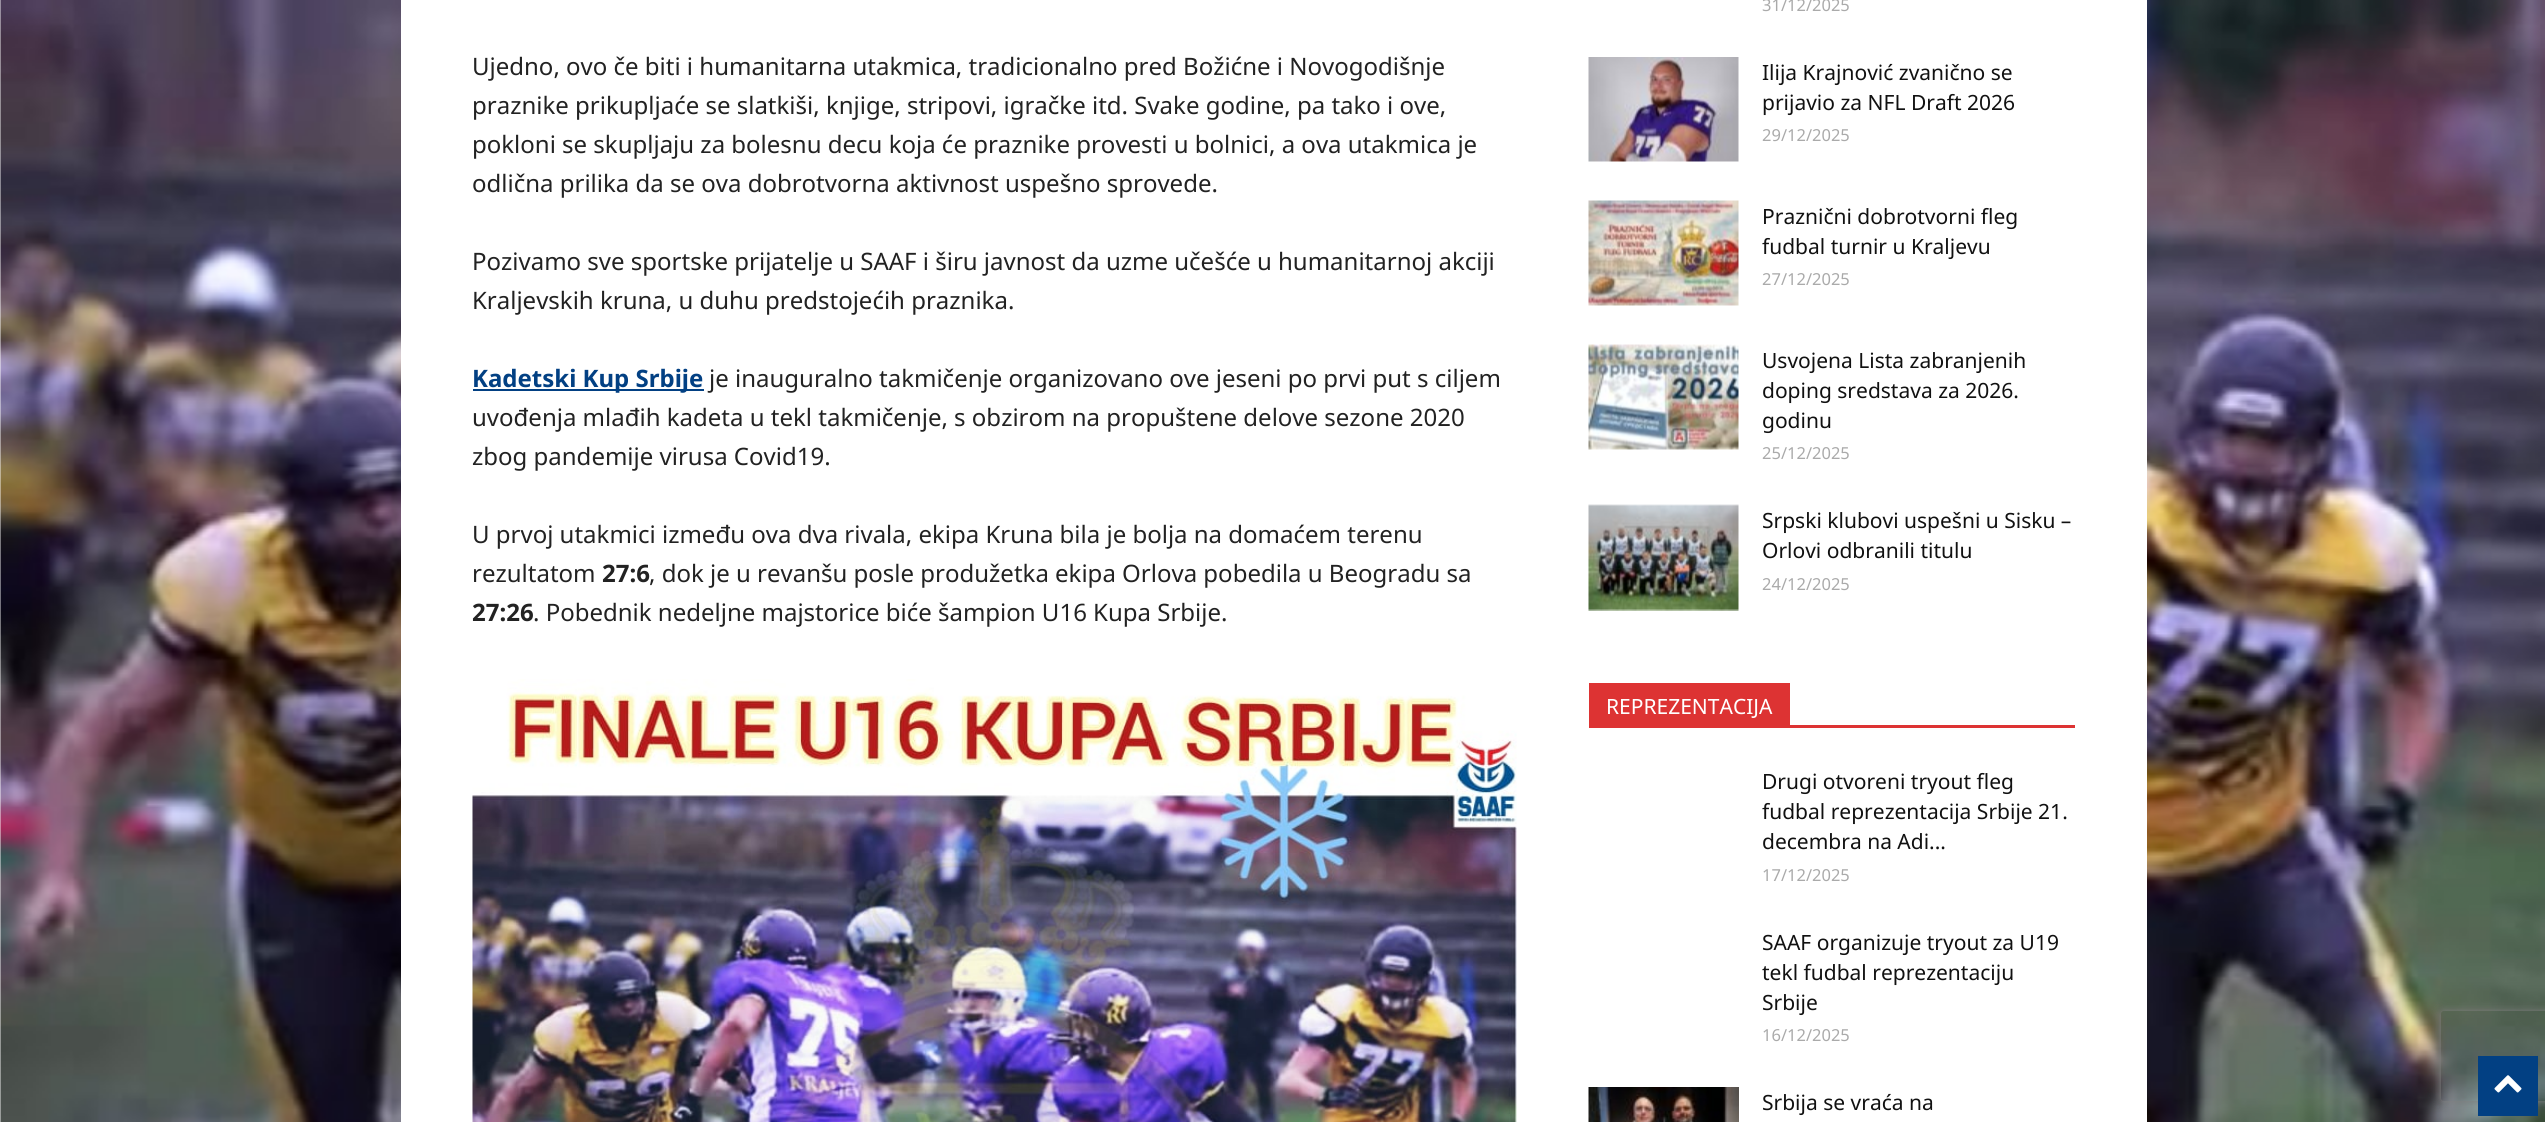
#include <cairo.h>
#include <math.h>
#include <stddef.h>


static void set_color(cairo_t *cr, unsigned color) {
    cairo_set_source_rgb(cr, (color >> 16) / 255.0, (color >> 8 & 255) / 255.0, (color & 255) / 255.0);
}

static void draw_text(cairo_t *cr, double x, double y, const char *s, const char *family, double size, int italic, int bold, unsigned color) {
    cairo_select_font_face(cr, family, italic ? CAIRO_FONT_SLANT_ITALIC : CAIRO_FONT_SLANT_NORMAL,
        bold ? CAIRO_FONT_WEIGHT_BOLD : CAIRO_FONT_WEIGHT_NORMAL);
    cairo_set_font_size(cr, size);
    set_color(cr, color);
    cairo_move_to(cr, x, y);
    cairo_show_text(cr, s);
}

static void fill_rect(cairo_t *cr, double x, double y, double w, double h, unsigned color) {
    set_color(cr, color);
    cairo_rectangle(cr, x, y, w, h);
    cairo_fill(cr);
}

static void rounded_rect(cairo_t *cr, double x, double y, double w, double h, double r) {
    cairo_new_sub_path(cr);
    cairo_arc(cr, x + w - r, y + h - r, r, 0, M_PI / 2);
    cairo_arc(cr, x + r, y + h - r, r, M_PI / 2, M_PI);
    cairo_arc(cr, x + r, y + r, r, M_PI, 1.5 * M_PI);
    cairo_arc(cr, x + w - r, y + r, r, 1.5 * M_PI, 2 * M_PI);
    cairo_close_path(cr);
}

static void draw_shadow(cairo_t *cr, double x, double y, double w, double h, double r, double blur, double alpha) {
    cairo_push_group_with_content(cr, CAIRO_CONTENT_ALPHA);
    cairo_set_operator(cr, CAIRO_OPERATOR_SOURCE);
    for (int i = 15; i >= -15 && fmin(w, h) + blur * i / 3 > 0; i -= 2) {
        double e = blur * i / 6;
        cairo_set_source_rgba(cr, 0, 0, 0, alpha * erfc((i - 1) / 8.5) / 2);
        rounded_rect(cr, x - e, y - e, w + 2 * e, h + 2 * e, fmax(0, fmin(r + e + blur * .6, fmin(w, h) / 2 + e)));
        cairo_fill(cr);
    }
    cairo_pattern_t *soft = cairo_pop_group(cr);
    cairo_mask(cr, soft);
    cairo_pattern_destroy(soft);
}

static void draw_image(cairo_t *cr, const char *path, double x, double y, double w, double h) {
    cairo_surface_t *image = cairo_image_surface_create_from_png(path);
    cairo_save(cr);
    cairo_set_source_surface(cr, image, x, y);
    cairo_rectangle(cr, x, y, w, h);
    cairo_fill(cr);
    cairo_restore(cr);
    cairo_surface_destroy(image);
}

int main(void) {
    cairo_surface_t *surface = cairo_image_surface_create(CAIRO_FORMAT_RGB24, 2545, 1122);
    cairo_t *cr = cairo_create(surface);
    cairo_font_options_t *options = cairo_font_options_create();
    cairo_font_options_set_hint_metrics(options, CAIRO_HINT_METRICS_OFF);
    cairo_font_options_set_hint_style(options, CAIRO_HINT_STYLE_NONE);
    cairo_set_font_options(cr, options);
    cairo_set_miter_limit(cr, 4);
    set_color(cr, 0xFFFFFF);
    cairo_paint(cr);
    draw_image(cr, "assets/img1.png", 0, 0, 2545, 1122);
    fill_rect(cr, 401, 0, 1746, 1122, 0xFFFFFF);
    draw_text(cr, 472, 75, "Ujedno, ovo če biti i humanitarna utakmica, tradicionalno pred Božićne i Novogodišnje", "Noto Sans", 24, 0, 0, 0x222222);
    draw_text(cr, 472, 114, "praznike prikupljaće se slatkiši, knjige, stripovi, igračke itd. Svake godine, pa tako i ove,", "Noto Sans", 24, 0, 0, 0x222222);
    draw_text(cr, 472, 153, "pokloni se skupljaju za bolesnu decu koja će praznike provesti u bolnici, a ova utakmica je", "Noto Sans", 24, 0, 0, 0x222222);
    draw_text(cr, 472, 192, "odlična prilika da se ova dobrotvorna aktivnost uspešno sprovede.", "Noto Sans", 24, 0, 0, 0x222222);
    draw_text(cr, 472, 270, "Pozivamo sve sportske prijatelje u SAAF i širu javnost da uzme učešće u humanitarnoj akciji", "Noto Sans", 24, 0, 0, 0x222222);
    draw_text(cr, 472, 309, "Kraljevskih kruna, u duhu predstojećih praznika.", "Noto Sans", 24, 0, 0, 0x222222);
    fill_rect(cr, 473, 389, 231, 2, 0x024083);
    draw_text(cr, 472, 387, "Kadetski Kup Srbije", "Noto Sans", 24, 0, 1, 0x024083);
    draw_text(cr, 709, 387, "je inauguralno takmičenje organizovano ove jeseni po prvi put s ciljem", "Noto Sans", 24, 0, 0, 0x222222);
    draw_text(cr, 472, 426, "uvođenja mlađih kadeta u tekl takmičenje, s obzirom na propuštene delove sezone 2020", "Noto Sans", 24, 0, 0, 0x222222);
    draw_text(cr, 472, 465, "zbog pandemije virusa Covid19.", "Noto Sans", 24, 0, 0, 0x222222);
    draw_text(cr, 472, 543, "U prvoj utakmici između ova dva rivala, ekipa Kruna bila je bolja na domaćem terenu", "Noto Sans", 24, 0, 0, 0x222222);
    draw_text(cr, 472, 582, "rezultatom", "Noto Sans", 24, 0, 0, 0x222222);
    draw_text(cr, 602, 582, "27:6", "Noto Sans", 24, 0, 1, 0x222222);
    draw_text(cr, 649, 582, ", dok je u revanšu posle produžetka ekipa Orlova pobedila u Beogradu sa", "Noto Sans", 24, 0, 0, 0x222222);
    draw_text(cr, 472, 621, "27:26", "Noto Sans", 24, 0, 1, 0x222222);
    draw_text(cr, 533, 621, ". Pobednik nedeljne majstorice biće šampion U16 Kupa Srbije.", "Noto Sans", 24, 0, 0, 0x222222);
    draw_image(cr, "assets/img2.png", 472, 679, 1045, 443);
    draw_text(cr, 1762, 11, "31/12/2025", "Noto Sans", 16.5, 0, 0, 0xAAAAAA);
    draw_image(cr, "assets/img3.png", 1588, 57, 151, 105);
    draw_text(cr, 1762, 80, "Ilija Krajnović zvanično se", "Noto Sans", 21, 0, 0, 0x111111);
    draw_text(cr, 1762, 110, "prijavio za NFL Draft 2026", "Noto Sans", 21, 0, 0, 0x111111);
    draw_text(cr, 1762, 141, "29/12/2025", "Noto Sans", 16.5, 0, 0, 0xAAAAAA);
    draw_image(cr, "assets/img4.png", 1588, 200, 151, 106);
    draw_text(cr, 1762, 224, "Praznični dobrotvorni fleg", "Noto Sans", 21, 0, 0, 0x111111);
    draw_text(cr, 1762, 254, "fudbal turnir u Kraljevu", "Noto Sans", 21, 0, 0, 0x111111);
    draw_text(cr, 1762, 285, "27/12/2025", "Noto Sans", 16.5, 0, 0, 0xAAAAAA);
    draw_image(cr, "assets/img5.png", 1588, 344, 151, 106);
    draw_text(cr, 1762, 368, "Usvojena Lista zabranjenih", "Noto Sans", 21, 0, 0, 0x111111);
    draw_text(cr, 1762, 398, "doping sredstava za 2026.", "Noto Sans", 21, 0, 0, 0x111111);
    draw_text(cr, 1762, 428, "godinu", "Noto Sans", 21, 0, 0, 0x111111);
    draw_text(cr, 1762, 459, "25/12/2025", "Noto Sans", 16.5, 0, 0, 0xAAAAAA);
    draw_image(cr, "assets/img6.png", 1588, 504, 151, 107);
    draw_text(cr, 1762, 528, "Srpski klubovi uspešni u Sisku –", "Noto Sans", 21, 0, 0, 0x111111);
    draw_text(cr, 1762, 558, "Orlovi odbranili titulu", "Noto Sans", 21, 0, 0, 0x111111);
    draw_text(cr, 1762, 590, "24/12/2025", "Noto Sans", 16.5, 0, 0, 0xAAAAAA);
    fill_rect(cr, 1589, 725, 486, 3, 0xDD3333);
    fill_rect(cr, 1589, 683, 201, 42, 0xDD3333);
    draw_text(cr, 1606, 714, "REPREZENTACIJA", "Noto Sans", 21, 0, 0, 0xFFFFFF);
    draw_text(cr, 1762, 789, "Drugi otvoreni tryout fleg", "Noto Sans", 21, 0, 0, 0x111111);
    draw_text(cr, 1762, 819, "fudbal reprezentacija Srbije 21.", "Noto Sans", 21, 0, 0, 0x111111);
    draw_text(cr, 1762, 849, "decembra na Adi...", "Noto Sans", 21, 0, 0, 0x111111);
    draw_text(cr, 1762, 881, "17/12/2025", "Noto Sans", 16.5, 0, 0, 0xAAAAAA);
    draw_text(cr, 1762, 950, "SAAF organizuje tryout za U19", "Noto Sans", 21, 0, 0, 0x111111);
    draw_text(cr, 1762, 980, "tekl fudbal reprezentaciju", "Noto Sans", 21, 0, 0, 0x111111);
    draw_text(cr, 1762, 1010, "Srbije", "Noto Sans", 21, 0, 0, 0x111111);
    draw_text(cr, 1762, 1041, "16/12/2025", "Noto Sans", 16.5, 0, 0, 0xAAAAAA);
    draw_image(cr, "assets/img7.png", 1588, 1087, 151, 35);
    draw_text(cr, 1762, 1110, "Srbija se vraća na", "Noto Sans", 21, 0, 0, 0x111111);
    cairo_save(cr);
    cairo_set_fill_rule(cr, CAIRO_FILL_RULE_EVEN_ODD);
    cairo_new_path(cr);
    cairo_move_to(cr, 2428, 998);
    cairo_line_to(cr, 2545, 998);
    cairo_line_to(cr, 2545, 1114);
    cairo_line_to(cr, 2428, 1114);
    cairo_close_path(cr);
    cairo_move_to(cr, 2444, 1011);
    cairo_line_to(cr, 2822, 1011);
    cairo_curve_to(cr, 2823.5, 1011, 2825, 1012.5, 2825, 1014);
    cairo_line_to(cr, 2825, 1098);
    cairo_curve_to(cr, 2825, 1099.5, 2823.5, 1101, 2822, 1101);
    cairo_line_to(cr, 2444, 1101);
    cairo_curve_to(cr, 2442.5, 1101, 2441, 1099.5, 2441, 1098);
    cairo_line_to(cr, 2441, 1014);
    cairo_curve_to(cr, 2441, 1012.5, 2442.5, 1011, 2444, 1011);
    cairo_close_path(cr);
    cairo_clip(cr);
    set_color(cr, 0x808080);
    draw_shadow(cr, 2441, 1011, 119, 90, 3, 4, 1);
    cairo_restore(cr);
    fill_rect(cr, 2478, 1056, 60, 60, 0x024083);
    draw_image(cr, "assets/img8.png", 2494, 1075, 28, 18);
    cairo_surface_write_to_png(surface, "output.png");
    cairo_font_options_destroy(options);
    cairo_destroy(cr);
    cairo_surface_destroy(surface);
    return 0;
}
